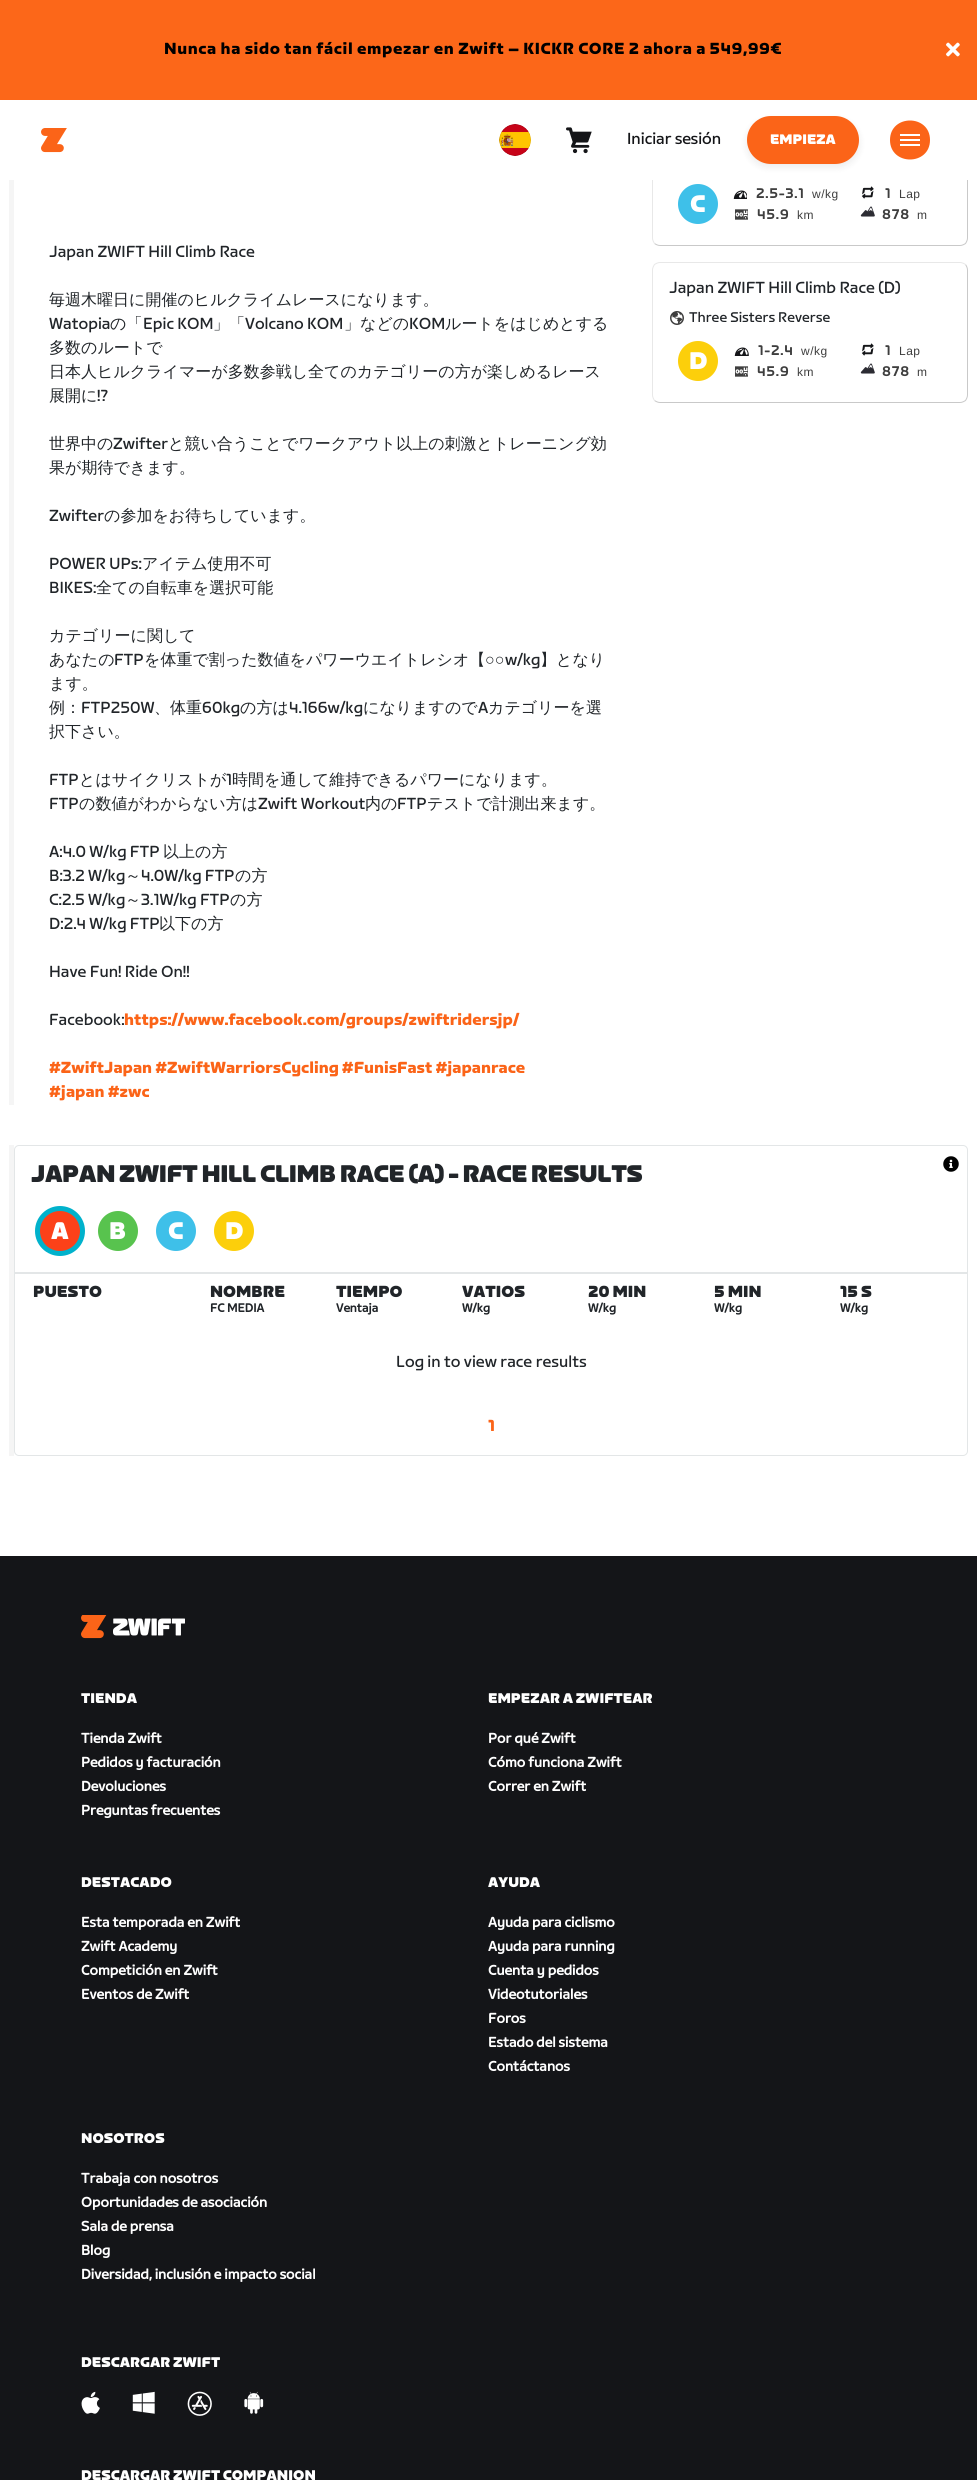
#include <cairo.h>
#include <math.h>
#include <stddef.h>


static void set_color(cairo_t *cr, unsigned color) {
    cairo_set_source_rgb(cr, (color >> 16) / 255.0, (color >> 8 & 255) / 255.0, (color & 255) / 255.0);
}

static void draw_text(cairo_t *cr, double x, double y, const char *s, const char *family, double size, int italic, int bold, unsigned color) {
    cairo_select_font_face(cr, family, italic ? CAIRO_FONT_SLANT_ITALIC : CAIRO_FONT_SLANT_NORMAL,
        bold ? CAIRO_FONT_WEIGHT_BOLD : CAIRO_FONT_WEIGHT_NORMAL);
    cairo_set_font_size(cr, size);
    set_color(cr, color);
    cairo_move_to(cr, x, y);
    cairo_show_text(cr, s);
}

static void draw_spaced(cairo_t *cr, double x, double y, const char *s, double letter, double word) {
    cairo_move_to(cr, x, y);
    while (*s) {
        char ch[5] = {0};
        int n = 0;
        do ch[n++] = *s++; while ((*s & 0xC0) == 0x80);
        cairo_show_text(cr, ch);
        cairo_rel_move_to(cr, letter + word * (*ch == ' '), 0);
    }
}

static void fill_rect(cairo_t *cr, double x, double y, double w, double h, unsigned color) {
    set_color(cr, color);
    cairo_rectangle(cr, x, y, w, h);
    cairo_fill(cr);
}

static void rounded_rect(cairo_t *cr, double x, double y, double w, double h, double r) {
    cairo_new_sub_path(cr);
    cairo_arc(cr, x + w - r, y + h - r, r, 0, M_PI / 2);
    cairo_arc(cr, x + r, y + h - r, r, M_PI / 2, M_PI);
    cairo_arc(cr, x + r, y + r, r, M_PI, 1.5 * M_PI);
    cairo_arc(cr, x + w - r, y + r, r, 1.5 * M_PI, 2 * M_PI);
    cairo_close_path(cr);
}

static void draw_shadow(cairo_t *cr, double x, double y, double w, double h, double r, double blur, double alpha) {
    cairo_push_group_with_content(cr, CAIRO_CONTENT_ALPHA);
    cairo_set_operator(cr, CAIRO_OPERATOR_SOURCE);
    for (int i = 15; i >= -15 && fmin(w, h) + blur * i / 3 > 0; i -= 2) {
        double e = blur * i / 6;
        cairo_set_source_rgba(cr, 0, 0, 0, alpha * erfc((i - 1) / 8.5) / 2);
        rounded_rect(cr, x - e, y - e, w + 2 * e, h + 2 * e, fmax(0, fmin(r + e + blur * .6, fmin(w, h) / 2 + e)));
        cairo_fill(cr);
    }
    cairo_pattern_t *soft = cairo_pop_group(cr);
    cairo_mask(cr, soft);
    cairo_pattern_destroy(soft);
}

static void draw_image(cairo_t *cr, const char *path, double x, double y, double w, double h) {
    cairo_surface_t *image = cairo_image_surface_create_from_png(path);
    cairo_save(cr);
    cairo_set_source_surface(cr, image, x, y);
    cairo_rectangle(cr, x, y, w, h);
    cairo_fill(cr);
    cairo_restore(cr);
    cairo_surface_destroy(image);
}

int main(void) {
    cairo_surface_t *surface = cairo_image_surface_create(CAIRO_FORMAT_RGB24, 977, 2480);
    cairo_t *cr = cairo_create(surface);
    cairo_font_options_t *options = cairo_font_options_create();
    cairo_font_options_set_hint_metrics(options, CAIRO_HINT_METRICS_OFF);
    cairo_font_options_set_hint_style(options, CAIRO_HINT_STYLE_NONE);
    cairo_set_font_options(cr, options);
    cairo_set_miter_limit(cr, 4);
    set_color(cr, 0xFFFFFF);
    cairo_paint(cr);
    fill_rect(cr, 0, 0, 977, 100, 0xFC6719);
    cairo_select_font_face(cr, "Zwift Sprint", CAIRO_FONT_SLANT_NORMAL, CAIRO_FONT_WEIGHT_BOLD);
    cairo_set_font_size(cr, 16);
    set_color(cr, 0x000000);
    draw_spaced(cr, 164, 54, "Nunca ha sido tan fácil empezar en Zwift – KICKR CORE 2 ahora a 549,99€", 0.6, 0);
    draw_image(cr, "assets/img1.png", 946, 42, 14, 15);
    cairo_new_path(cr);
    cairo_move_to(cr, 965.5, 107.5);
    cairo_curve_to(cr, 966.5, 109, 967.5, 111, 967.5, 113);
    cairo_line_to(cr, 967.5, 238);
    cairo_curve_to(cr, 967.5, 240, 966.5, 242, 965.5, 243.5);
    cairo_curve_to(cr, 964, 244.5, 962, 245.5, 960, 245.5);
    cairo_line_to(cr, 660, 245.5);
    cairo_curve_to(cr, 658, 245.5, 656, 244.5, 654.5, 243.5);
    set_color(cr, 0xC9C9C9);
    cairo_set_line_width(cr, 1);
    cairo_stroke(cr);
    cairo_new_path(cr);
    cairo_move_to(cr, 654.5, 243.5);
    cairo_curve_to(cr, 653.5, 242, 652.5, 240, 652.5, 238);
    cairo_line_to(cr, 652.5, 113);
    cairo_curve_to(cr, 652.5, 111, 653.5, 109, 654.5, 107.5);
    cairo_curve_to(cr, 656, 106.5, 658, 105.5, 660, 105.5);
    cairo_line_to(cr, 960, 105.5);
    cairo_curve_to(cr, 962, 105.5, 964, 106.5, 965.5, 107.5);
    set_color(cr, 0xE8E8E8);
    cairo_stroke(cr);
    fill_rect(cr, 652, 105, 316, 75, 0xFFFFFF);
    draw_image(cr, "assets/img2.png", 41, 128, 26, 25);
    draw_image(cr, "assets/img3.png", 499, 124, 32, 32);
    draw_image(cr, "assets/img4.png", 566, 127, 26, 27);
    draw_text(cr, 627, 144, "Iniciar sesión", "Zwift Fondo", 16, 0, 0, 0x141518);
    set_color(cr, 0x000000);
    draw_shadow(cr, 747, 120, 112, 47, 23.5, 4, 0.08);
    set_color(cr, 0xFB6418);
    rounded_rect(cr, 747, 116, 112, 48, 24);
    cairo_fill(cr);
    draw_text(cr, 770, 144, "EMPIEZA", "Zwift Sprint Black", 13.75, 0, 0, 0xFFFFFF);
    set_color(cr, 0xFB6418);
    cairo_new_path(cr);
    cairo_move_to(cr, 890, 140);
    cairo_curve_to(cr, 890, 114, 930, 114, 930, 140);
    cairo_curve_to(cr, 930, 166, 890, 166, 890, 140);
    cairo_close_path(cr);
    cairo_fill(cr);
    fill_rect(cr, 900, 134, 20, 2, 0xFFFFFF);
    fill_rect(cr, 900, 139, 20, 2, 0xFFFFFF);
    fill_rect(cr, 900, 144, 20, 2, 0xFFFFFF);
    fill_rect(cr, 9, 180, 5, 925, 0xF5F5F5);
    draw_text(cr, 49, 257, "Japan ZWIFT Hill Climb Race", "Zwift Sprint", 16, 0, 0, 0x212529);
    draw_text(cr, 49, 305, "毎週木曜日に開催のヒルクライムレースになります。", "WenQuanYi Zen Hei Medium", 16, 0, 0, 0x212529);
    draw_text(cr, 49, 329, "Watopia", "Zwift Sprint", 16, 0, 0, 0x212529);
    draw_text(cr, 110, 329, "の「", "WenQuanYi Zen Hei Medium", 16, 0, 0, 0x212529);
    draw_text(cr, 143, 329, "Epic KOM", "Zwift Sprint", 16, 0, 0, 0x212529);
    draw_text(cr, 213, 329, "」「", "WenQuanYi Zen Hei Medium", 16, 0, 0, 0x212529);
    draw_text(cr, 245, 329, "Volcano KOM", "Zwift Sprint", 16, 0, 0, 0x212529);
    draw_text(cr, 344, 329, "」などの", "WenQuanYi Zen Hei Medium", 16, 0, 0, 0x212529);
    draw_text(cr, 409, 329, "KOM", "Zwift Sprint", 16, 0, 0, 0x212529);
    draw_text(cr, 445, 329, "ルートをはじめとする", "WenQuanYi Zen Hei Medium", 16, 0, 0, 0x212529);
    draw_text(cr, 49, 353, "多数のルートで", "WenQuanYi Zen Hei Medium", 16, 0, 0, 0x212529);
    draw_text(cr, 49, 377, "日本人ヒルクライマーが多数参戦し全てのカテゴリーの方が楽しめるレース", "WenQuanYi Zen Hei Medium", 16, 0, 0, 0x212529);
    draw_text(cr, 49, 401, "展開に", "WenQuanYi Zen Hei Medium", 16, 0, 0, 0x212529);
    draw_text(cr, 97, 401, "!?", "Zwift Sprint", 16, 0, 0, 0x212529);
    draw_text(cr, 49, 449, "世界中の", "WenQuanYi Zen Hei Medium", 16, 0, 0, 0x212529);
    draw_text(cr, 113, 449, "Zwifter", "Zwift Sprint", 16, 0, 0, 0x212529);
    draw_text(cr, 168, 449, "と競い合うことでワークアウト以上の刺激とトレーニング効", "WenQuanYi Zen Hei Medium", 16, 0, 0, 0x212529);
    draw_text(cr, 49, 473, "果が期待できます。", "WenQuanYi Zen Hei Medium", 16, 0, 0, 0x212529);
    draw_text(cr, 49, 521, "Zwifter", "Zwift Sprint", 16, 0, 0, 0x212529);
    draw_text(cr, 104, 521, "の参加をお待ちしています。", "WenQuanYi Zen Hei Medium", 16, 0, 0, 0x212529);
    draw_text(cr, 49, 569, "POWER UPs:", "Zwift Sprint", 16, 0, 0, 0x212529);
    draw_text(cr, 142, 569, "アイテム使用不可", "WenQuanYi Zen Hei Medium", 16, 0, 0, 0x212529);
    draw_text(cr, 49, 593, "BIKES:", "Zwift Sprint", 16, 0, 0, 0x212529);
    draw_text(cr, 96, 593, "全ての自転車を選択可能", "WenQuanYi Zen Hei Medium", 16, 0, 0, 0x212529);
    draw_text(cr, 49, 641, "カテゴリーに関して", "WenQuanYi Zen Hei Medium", 16, 0, 0, 0x212529);
    draw_text(cr, 49, 665, "あなたの", "WenQuanYi Zen Hei Medium", 16, 0, 0, 0x212529);
    draw_text(cr, 114, 665, "FTP", "Zwift Sprint", 16, 0, 0, 0x212529);
    draw_text(cr, 144, 665, "を体重で割った数値をパワーウエイトレシオ【", "WenQuanYi Zen Hei Medium", 16, 0, 0, 0x212529);
    draw_text(cr, 485, 665, "○○", "Liberation Sans", 16, 0, 0, 0x212529);
    draw_text(cr, 505, 665, "w/kg", "Zwift Sprint", 16, 0, 0, 0x212529);
    draw_text(cr, 540, 665, "】となり", "WenQuanYi Zen Hei Medium", 16, 0, 0, 0x212529);
    draw_text(cr, 49, 689, "ます。", "WenQuanYi Zen Hei Medium", 16, 0, 0, 0x212529);
    draw_text(cr, 49, 713, "例：", "WenQuanYi Zen Hei Medium", 16, 0, 0, 0x212529);
    draw_text(cr, 81, 713, "FTP250W", "Zwift Sprint", 16, 0, 0, 0x212529);
    draw_text(cr, 154, 713, "、体重", "WenQuanYi Zen Hei Medium", 16, 0, 0, 0x212529);
    draw_text(cr, 202, 713, "60kg", "Zwift Sprint", 16, 0, 0, 0x212529);
    draw_text(cr, 240, 713, "の方は", "WenQuanYi Zen Hei Medium", 16, 0, 0, 0x212529);
    draw_text(cr, 289, 713, "4.166w/kg", "Zwift Sprint", 16, 0, 0, 0x212529);
    draw_text(cr, 363, 713, "になりますので", "WenQuanYi Zen Hei Medium", 16, 0, 0, 0x212529);
    draw_text(cr, 478, 713, "A", "Zwift Sprint", 16, 0, 0, 0x212529);
    draw_text(cr, 488, 713, "カテゴリーを選", "WenQuanYi Zen Hei Medium", 16, 0, 0, 0x212529);
    draw_text(cr, 49, 737, "択下さい。", "WenQuanYi Zen Hei Medium", 16, 0, 0, 0x212529);
    draw_text(cr, 49, 785, "FTP", "Zwift Sprint", 16, 0, 0, 0x212529);
    draw_text(cr, 79, 785, "とはサイクリストが", "WenQuanYi Zen Hei Medium", 16, 0, 0, 0x212529);
    draw_text(cr, 226, 785, "1", "Zwift Sprint", 16, 0, 0, 0x212529);
    draw_text(cr, 232, 785, "時間を通して維持できるパワーになります。", "WenQuanYi Zen Hei Medium", 16, 0, 0, 0x212529);
    draw_text(cr, 49, 809, "FTP", "Zwift Sprint", 16, 0, 0, 0x212529);
    draw_text(cr, 79, 809, "の数値がわからない方は", "WenQuanYi Zen Hei Medium", 16, 0, 0, 0x212529);
    draw_text(cr, 258, 809, "Zwift Workout", "Zwift Sprint", 16, 0, 0, 0x212529);
    draw_text(cr, 365, 809, "内の", "WenQuanYi Zen Hei Medium", 16, 0, 0, 0x212529);
    draw_text(cr, 397, 809, "FTP", "Zwift Sprint", 16, 0, 0, 0x212529);
    draw_text(cr, 427, 809, "テストで計測出来ます。", "WenQuanYi Zen Hei Medium", 16, 0, 0, 0x212529);
    draw_text(cr, 49, 857, "A:4.0 W/kg FTP", "Zwift Sprint", 16, 0, 0, 0x212529);
    draw_text(cr, 163, 857, "以上の方", "WenQuanYi Zen Hei Medium", 16, 0, 0, 0x212529);
    draw_text(cr, 49, 881, "B:3.2 W/kg", "Zwift Sprint", 16, 0, 0, 0x212529);
    draw_text(cr, 125, 881, "～", "WenQuanYi Zen Hei Medium", 16, 0, 0, 0x212529);
    draw_text(cr, 141, 881, "4.0W/kg FTP", "Zwift Sprint", 16, 0, 0, 0x212529);
    draw_text(cr, 235, 881, "の方", "WenQuanYi Zen Hei Medium", 16, 0, 0, 0x212529);
    draw_text(cr, 49, 905, "C:2.5 W/kg", "Zwift Sprint", 16, 0, 0, 0x212529);
    draw_text(cr, 125, 905, "～", "WenQuanYi Zen Hei Medium", 16, 0, 0, 0x212529);
    draw_text(cr, 141, 905, "3.1W/kg FTP", "Zwift Sprint", 16, 0, 0, 0x212529);
    draw_text(cr, 230, 905, "の方", "WenQuanYi Zen Hei Medium", 16, 0, 0, 0x212529);
    draw_text(cr, 49, 929, "D:2.4 W/kg FTP", "Zwift Sprint", 16, 0, 0, 0x212529);
    draw_text(cr, 159, 929, "以下の方", "WenQuanYi Zen Hei Medium", 16, 0, 0, 0x212529);
    draw_text(cr, 49, 977, "Have Fun! Ride On!!", "Zwift Sprint", 16, 0, 0, 0x212529);
    draw_text(cr, 49, 1025, "Facebook:", "Zwift Sprint", 16, 0, 0, 0x212529);
    draw_text(cr, 124, 1025, "https://www.facebook.com/groups/zwiftridersjp/", "Zwift Sprint", 16, 0, 1, 0xFB6418);
    draw_text(cr, 49, 1073, "#ZwiftJapan #ZwiftWarriorsCycling #FunisFast #japanrace", "Zwift Sprint", 16, 0, 1, 0xFB6418);
    draw_text(cr, 49, 1097, "#japan #zwc", "Zwift Sprint", 16, 0, 1, 0xFB6418);
    set_color(cr, 0x3EC0E9);
    cairo_new_path(cr);
    cairo_arc(cr, 698, 204, 20, 0, 2 * M_PI);
    cairo_fill(cr);
    draw_image(cr, "assets/img5.png", 690, 195, 15, 17);
    draw_image(cr, "assets/img6.png", 733, 190, 14, 9);
    cairo_select_font_face(cr, "Zwift Sprint Medium", CAIRO_FONT_SLANT_NORMAL, CAIRO_FONT_WEIGHT_NORMAL);
    cairo_set_font_size(cr, 14);
    set_color(cr, 0x3E3E3E);
    draw_spaced(cr, 756, 198, "2.5-3.1", 0.75, 0);
    cairo_select_font_face(cr, "Liberation Sans", CAIRO_FONT_SLANT_NORMAL, CAIRO_FONT_WEIGHT_NORMAL);
    cairo_set_font_size(cr, 12);
    draw_spaced(cr, 812, 198, "w/kg", 0.5, 0);
    draw_image(cr, "assets/img7.png", 861, 186, 13, 13);
    cairo_select_font_face(cr, "Zwift Sprint Medium", CAIRO_FONT_SLANT_NORMAL, CAIRO_FONT_WEIGHT_NORMAL);
    cairo_set_font_size(cr, 14);
    draw_spaced(cr, 885, 198, "1", 0.75, 0);
    cairo_select_font_face(cr, "Liberation Sans", CAIRO_FONT_SLANT_NORMAL, CAIRO_FONT_WEIGHT_NORMAL);
    cairo_set_font_size(cr, 12);
    draw_spaced(cr, 899, 198, "Lap", 0.5, 0);
    draw_image(cr, "assets/img8.png", 735, 209, 13, 11);
    cairo_select_font_face(cr, "Zwift Sprint Medium", CAIRO_FONT_SLANT_NORMAL, CAIRO_FONT_WEIGHT_NORMAL);
    cairo_set_font_size(cr, 14);
    draw_spaced(cr, 757, 219, "45.9", 0.75, 0);
    cairo_select_font_face(cr, "Liberation Sans", CAIRO_FONT_SLANT_NORMAL, CAIRO_FONT_WEIGHT_NORMAL);
    cairo_set_font_size(cr, 12);
    draw_spaced(cr, 797, 219, "km", 0.5, 0);
    draw_image(cr, "assets/img9.png", 860, 206, 15, 11);
    cairo_select_font_face(cr, "Zwift Sprint Medium", CAIRO_FONT_SLANT_NORMAL, CAIRO_FONT_WEIGHT_NORMAL);
    cairo_set_font_size(cr, 14);
    draw_spaced(cr, 882, 219, "878", 0.75, 0);
    cairo_select_font_face(cr, "Liberation Sans", CAIRO_FONT_SLANT_NORMAL, CAIRO_FONT_WEIGHT_NORMAL);
    cairo_set_font_size(cr, 12);
    draw_spaced(cr, 917, 219, "m", 0.5, 0);
    cairo_new_path(cr);
    cairo_move_to(cr, 965.5, 264.5);
    cairo_curve_to(cr, 966.5, 266, 967.5, 268, 967.5, 270);
    cairo_line_to(cr, 967.5, 395);
    cairo_curve_to(cr, 967.5, 397, 966.5, 399, 965.5, 400.5);
    cairo_curve_to(cr, 964, 401.5, 962, 402.5, 960, 402.5);
    cairo_line_to(cr, 660, 402.5);
    cairo_curve_to(cr, 658, 402.5, 656, 401.5, 654.5, 400.5);
    set_color(cr, 0xC9C9C9);
    cairo_stroke(cr);
    cairo_new_path(cr);
    cairo_move_to(cr, 654.5, 400.5);
    cairo_curve_to(cr, 653.5, 399, 652.5, 397, 652.5, 395);
    cairo_line_to(cr, 652.5, 270);
    cairo_curve_to(cr, 652.5, 268, 653.5, 266, 654.5, 264.5);
    cairo_curve_to(cr, 656, 263.5, 658, 262.5, 660, 262.5);
    cairo_line_to(cr, 960, 262.5);
    cairo_curve_to(cr, 962, 262.5, 964, 263.5, 965.5, 264.5);
    set_color(cr, 0xE8E8E8);
    cairo_stroke(cr);
    draw_text(cr, 669, 293, "Japan ZWIFT Hill Climb Race (D)", "Zwift Sprint", 16, 0, 0, 0x212529);
    draw_image(cr, "assets/img10.png", 670, 311, 14, 14);
    draw_text(cr, 689, 322, "Three Sisters Reverse", "Zwift Sprint", 14, 0, 0, 0x212529);
    set_color(cr, 0xFCCF0B);
    cairo_new_path(cr);
    cairo_arc(cr, 698, 361, 20, 0, 2 * M_PI);
    cairo_fill(cr);
    draw_image(cr, "assets/img11.png", 690, 352, 17, 17);
    draw_image(cr, "assets/img12.png", 734, 347, 15, 9);
    cairo_select_font_face(cr, "Zwift Sprint Medium", CAIRO_FONT_SLANT_NORMAL, CAIRO_FONT_WEIGHT_NORMAL);
    set_color(cr, 0x3E3E3E);
    draw_spaced(cr, 758, 355, "1-2.4", 0.75, 0);
    cairo_select_font_face(cr, "Liberation Sans", CAIRO_FONT_SLANT_NORMAL, CAIRO_FONT_WEIGHT_NORMAL);
    cairo_set_font_size(cr, 12);
    draw_spaced(cr, 801, 355, "w/kg", 0.5, 0);
    draw_image(cr, "assets/img7.png", 861, 343, 13, 13);
    cairo_select_font_face(cr, "Zwift Sprint Medium", CAIRO_FONT_SLANT_NORMAL, CAIRO_FONT_WEIGHT_NORMAL);
    cairo_set_font_size(cr, 14);
    draw_spaced(cr, 885, 355, "1", 0.75, 0);
    cairo_select_font_face(cr, "Liberation Sans", CAIRO_FONT_SLANT_NORMAL, CAIRO_FONT_WEIGHT_NORMAL);
    cairo_set_font_size(cr, 12);
    draw_spaced(cr, 899, 355, "Lap", 0.5, 0);
    draw_image(cr, "assets/img8.png", 735, 366, 13, 11);
    cairo_select_font_face(cr, "Zwift Sprint Medium", CAIRO_FONT_SLANT_NORMAL, CAIRO_FONT_WEIGHT_NORMAL);
    cairo_set_font_size(cr, 14);
    draw_spaced(cr, 757, 376, "45.9", 0.75, 0);
    cairo_select_font_face(cr, "Liberation Sans", CAIRO_FONT_SLANT_NORMAL, CAIRO_FONT_WEIGHT_NORMAL);
    cairo_set_font_size(cr, 12);
    draw_spaced(cr, 797, 376, "km", 0.5, 0);
    draw_image(cr, "assets/img9.png", 860, 363, 15, 11);
    cairo_select_font_face(cr, "Zwift Sprint Medium", CAIRO_FONT_SLANT_NORMAL, CAIRO_FONT_WEIGHT_NORMAL);
    cairo_set_font_size(cr, 14);
    draw_spaced(cr, 882, 376, "878", 0.75, 0);
    cairo_select_font_face(cr, "Liberation Sans", CAIRO_FONT_SLANT_NORMAL, CAIRO_FONT_WEIGHT_NORMAL);
    cairo_set_font_size(cr, 12);
    draw_spaced(cr, 917, 376, "m", 0.5, 0);
    fill_rect(cr, 9, 1145, 5, 311, 0xF5F5F5);
    rounded_rect(cr, 14.5, 1145.5, 953, 310, 4.5);
    set_color(cr, 0xE3E6E7);
    cairo_stroke(cr);
    cairo_select_font_face(cr, "Zwift Sprint Black", CAIRO_FONT_SLANT_NORMAL, CAIRO_FONT_WEIGHT_NORMAL);
    cairo_set_font_size(cr, 24);
    set_color(cr, 0x212529);
    draw_spaced(cr, 31, 1182, "JAPAN ZWIFT HILL CLIMB RACE (A) - RACE RESULTS", -0.5, 0);
    draw_image(cr, "assets/img13.png", 943, 1156, 16, 16);
    set_color(cr, 0x01B2CC);
    cairo_arc(cr, 60, 1231, 25, 0, 2 * M_PI);
    cairo_fill(cr);
    set_color(cr, 0xFC4119);
    cairo_arc(cr, 60, 1231, 20, 0, 2 * M_PI);
    cairo_fill(cr);
    draw_image(cr, "assets/img14.png", 51, 1222, 18, 17);
    set_color(cr, 0x58C34E);
    cairo_arc(cr, 118, 1231, 20, 0, 2 * M_PI);
    cairo_fill(cr);
    draw_image(cr, "assets/img15.png", 110, 1222, 16, 17);
    set_color(cr, 0x3EC0E9);
    cairo_arc(cr, 176, 1231, 20, 0, 2 * M_PI);
    cairo_fill(cr);
    draw_image(cr, "assets/img5.png", 168, 1222, 15, 17);
    set_color(cr, 0xFCCF0B);
    cairo_arc(cr, 234, 1231, 20, 0, 2 * M_PI);
    cairo_fill(cr);
    draw_image(cr, "assets/img11.png", 226, 1222, 17, 17);
    fill_rect(cr, 15, 1272, 952, 2, 0xE3E6E7);
    draw_text(cr, 33, 1297, "PUESTO", "Zwift Sprint Black", 16, 0, 0, 0x212529);
    draw_text(cr, 210, 1297, "NOMBRE", "Zwift Sprint Black", 16, 0, 0, 0x212529);
    draw_text(cr, 210, 1312, "FC MEDIA", "Zwift Fondo", 12, 0, 1, 0x212529);
    draw_text(cr, 336, 1297, "TIEMPO", "Zwift Sprint Black", 16, 0, 0, 0x212529);
    draw_text(cr, 336, 1312, "Ventaja", "Zwift Fondo", 12, 0, 1, 0x212529);
    draw_text(cr, 462, 1297, "VATIOS", "Zwift Sprint Black", 16, 0, 0, 0x212529);
    draw_text(cr, 462, 1312, "W/kg", "Zwift Fondo", 12, 0, 1, 0x212529);
    draw_text(cr, 588, 1297, "20 MIN", "Zwift Sprint Black", 16, 0, 0, 0x212529);
    draw_text(cr, 588, 1312, "W/kg", "Zwift Fondo", 12, 0, 1, 0x212529);
    draw_text(cr, 714, 1297, "5 MIN", "Zwift Sprint Black", 16, 0, 0, 0x212529);
    draw_text(cr, 714, 1312, "W/kg", "Zwift Fondo", 12, 0, 1, 0x212529);
    draw_text(cr, 840, 1297, "15 S", "Zwift Sprint Black", 16, 0, 0, 0x212529);
    draw_text(cr, 840, 1312, "W/kg", "Zwift Fondo", 12, 0, 1, 0x212529);
    draw_text(cr, 396, 1367, "Log in to view race results", "Zwift Sprint", 16, 0, 0, 0x212529);
    draw_text(cr, 488, 1431, "1", "Zwift Sprint", 16, 0, 1, 0xFB6418);
    fill_rect(cr, 0, 1556, 977, 924, 0x141518);
    draw_image(cr, "assets/img16.png", 81, 1615, 26, 24);
    draw_image(cr, "assets/img17.png", 113, 1618, 72, 18);
    draw_text(cr, 81, 1703, "TIENDA", "Zwift Sprint Black", 14, 0, 0, 0xFFFFFF);
    draw_text(cr, 81, 1743, "Tienda Zwift", "Zwift Fondo", 14, 0, 1, 0xFFFFFF);
    draw_text(cr, 81, 1767, "Pedidos y facturación", "Zwift Fondo", 14, 0, 1, 0xFFFFFF);
    draw_text(cr, 81, 1791, "Devoluciones", "Zwift Fondo", 14, 0, 1, 0xFFFFFF);
    draw_text(cr, 81, 1815, "Preguntas frecuentes", "Zwift Fondo", 14, 0, 1, 0xFFFFFF);
    draw_text(cr, 488, 1703, "EMPEZAR A ZWIFTEAR", "Zwift Sprint Black", 14, 0, 0, 0xFFFFFF);
    draw_text(cr, 488, 1743, "Por qué Zwift", "Zwift Fondo", 14, 0, 1, 0xFFFFFF);
    draw_text(cr, 488, 1767, "Cómo funciona Zwift", "Zwift Fondo", 14, 0, 1, 0xFFFFFF);
    draw_text(cr, 488, 1791, "Correr en Zwift", "Zwift Fondo", 14, 0, 1, 0xFFFFFF);
    draw_text(cr, 81, 1887, "DESTACADO", "Zwift Sprint Black", 14, 0, 0, 0xFFFFFF);
    draw_text(cr, 81, 1927, "Esta temporada en Zwift", "Zwift Fondo", 14, 0, 1, 0xFFFFFF);
    draw_text(cr, 81, 1951, "Zwift Academy", "Zwift Fondo", 14, 0, 1, 0xFFFFFF);
    draw_text(cr, 81, 1975, "Competición en Zwift", "Zwift Fondo", 14, 0, 1, 0xFFFFFF);
    draw_text(cr, 81, 1999, "Eventos de Zwift", "Zwift Fondo", 14, 0, 1, 0xFFFFFF);
    draw_text(cr, 488, 1887, "AYUDA", "Zwift Sprint Black", 14, 0, 0, 0xFFFFFF);
    draw_text(cr, 488, 1927, "Ayuda para ciclismo", "Zwift Fondo", 14, 0, 1, 0xFFFFFF);
    draw_text(cr, 488, 1951, "Ayuda para running", "Zwift Fondo", 14, 0, 1, 0xFFFFFF);
    draw_text(cr, 488, 1975, "Cuenta y pedidos", "Zwift Fondo", 14, 0, 1, 0xFFFFFF);
    draw_text(cr, 488, 1999, "Videotutoriales", "Zwift Fondo", 14, 0, 1, 0xFFFFFF);
    draw_text(cr, 488, 2023, "Foros", "Zwift Fondo", 14, 0, 1, 0xFFFFFF);
    draw_text(cr, 488, 2047, "Estado del sistema", "Zwift Fondo", 14, 0, 1, 0xFFFFFF);
    draw_text(cr, 488, 2071, "Contáctanos", "Zwift Fondo", 14, 0, 1, 0xFFFFFF);
    draw_text(cr, 81, 2143, "NOSOTROS", "Zwift Sprint Black", 14, 0, 0, 0xFFFFFF);
    draw_text(cr, 81, 2183, "Trabaja con nosotros", "Zwift Fondo", 14, 0, 1, 0xFFFFFF);
    draw_text(cr, 81, 2207, "Oportunidades de asociación", "Zwift Fondo", 14, 0, 1, 0xFFFFFF);
    draw_text(cr, 81, 2231, "Sala de prensa", "Zwift Fondo", 14, 0, 1, 0xFFFFFF);
    draw_text(cr, 81, 2255, "Blog", "Zwift Fondo", 14, 0, 1, 0xFFFFFF);
    draw_text(cr, 81, 2279, "Diversidad, inclusión e impacto social", "Zwift Fondo", 14, 0, 1, 0xFFFFFF);
    draw_text(cr, 81, 2367, "DESCARGAR ZWIFT", "Zwift Sprint Black", 14, 0, 0, 0xFFFFFF);
    draw_image(cr, "assets/img18.png", 81, 2391, 19, 23);
    draw_image(cr, "assets/img19.png", 132, 2391, 23, 23);
    draw_image(cr, "assets/img20.png", 187, 2391, 25, 25);
    draw_image(cr, "assets/img21.png", 244, 2391, 20, 23);
    draw_text(cr, 81, 2480, "DESCARGAR ZWIFT COMPANION", "Zwift Sprint Black", 14, 0, 0, 0xFFFFFF);
    cairo_surface_write_to_png(surface, "output.png");
    cairo_font_options_destroy(options);
    cairo_destroy(cr);
    cairo_surface_destroy(surface);
    return 0;
}
